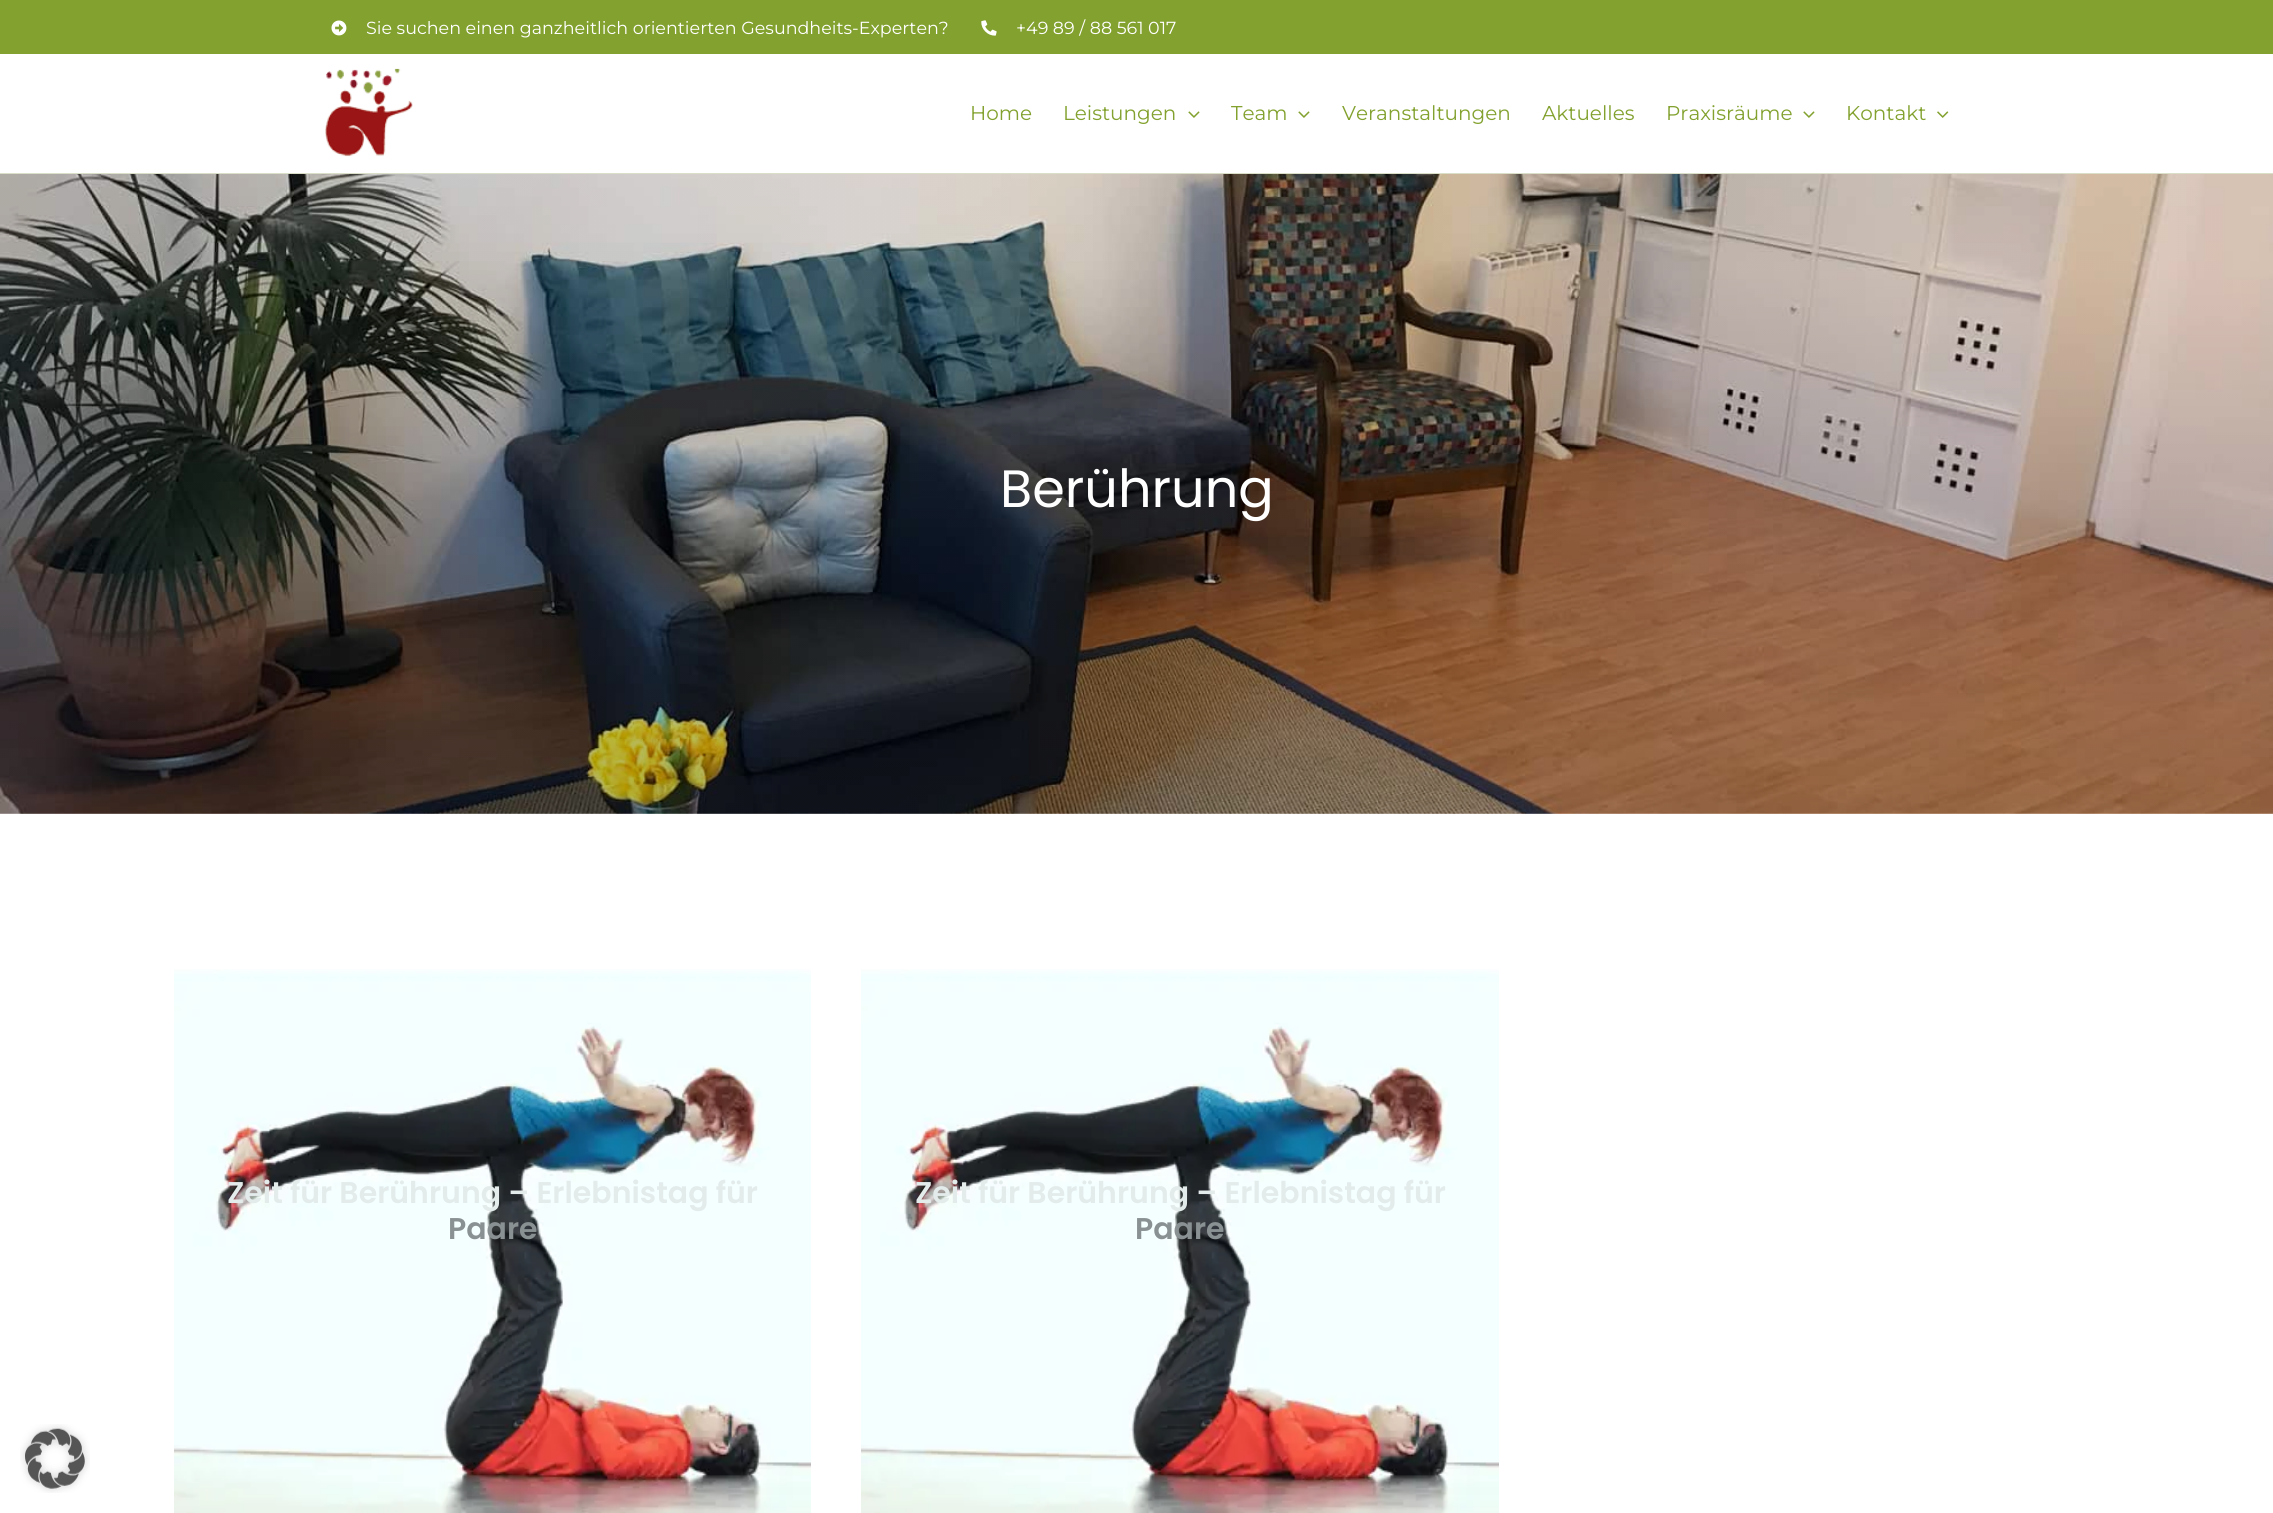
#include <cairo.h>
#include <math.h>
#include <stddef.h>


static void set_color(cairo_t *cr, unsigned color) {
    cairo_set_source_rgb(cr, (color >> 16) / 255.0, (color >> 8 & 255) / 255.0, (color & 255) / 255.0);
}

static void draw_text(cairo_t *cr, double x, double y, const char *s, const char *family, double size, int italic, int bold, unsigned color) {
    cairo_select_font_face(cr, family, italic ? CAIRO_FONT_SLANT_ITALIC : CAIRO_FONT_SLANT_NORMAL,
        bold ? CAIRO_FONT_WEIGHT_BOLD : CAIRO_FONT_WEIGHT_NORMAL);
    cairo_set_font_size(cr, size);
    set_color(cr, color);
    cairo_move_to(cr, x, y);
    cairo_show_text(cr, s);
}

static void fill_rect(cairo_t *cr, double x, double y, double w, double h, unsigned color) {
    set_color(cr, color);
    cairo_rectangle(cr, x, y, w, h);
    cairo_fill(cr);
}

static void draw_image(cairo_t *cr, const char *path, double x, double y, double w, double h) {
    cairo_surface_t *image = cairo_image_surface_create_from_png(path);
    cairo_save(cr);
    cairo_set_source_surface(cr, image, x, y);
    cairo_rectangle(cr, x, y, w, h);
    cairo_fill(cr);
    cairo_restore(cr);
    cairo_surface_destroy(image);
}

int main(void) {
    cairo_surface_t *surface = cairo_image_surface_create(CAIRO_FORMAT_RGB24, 2273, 1513);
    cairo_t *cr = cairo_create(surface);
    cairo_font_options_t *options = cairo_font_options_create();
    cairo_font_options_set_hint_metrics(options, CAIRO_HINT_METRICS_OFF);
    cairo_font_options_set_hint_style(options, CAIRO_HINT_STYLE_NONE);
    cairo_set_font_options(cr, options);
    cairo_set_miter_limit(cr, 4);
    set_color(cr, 0xFFFFFF);
    cairo_paint(cr);
    fill_rect(cr, 0, 0, 2273, 54, 0x82A12E);
    draw_image(cr, "assets/img1.png", 331, 20, 16, 16);
    draw_text(cr, 366, 34, "Sie suchen einen ganzheitlich orientierten Gesundheits-Experten?", "Montserrat Thin", 17.5, 0, 0, 0xFFFFFF);
    draw_image(cr, "assets/img2.png", 981, 20, 16, 16);
    draw_text(cr, 1016, 34, "+49 89 / 88 561 017", "Montserrat Thin", 17.5, 0, 0, 0xFFFFFF);
    fill_rect(cr, 0, 173, 2273, 1, 0xD9E0C7);
    draw_image(cr, "assets/img3.png", 325, 68, 88, 89);
    draw_text(cr, 970, 120, "Home", "Montserrat Thin", 20, 0, 0, 0x82A12E);
    draw_text(cr, 1063, 120, "Leistungen", "Montserrat Thin", 20, 0, 0, 0x82A12E);
    draw_image(cr, "assets/img4.png", 1188, 111, 12, 7);
    draw_text(cr, 1231, 120, "Team", "Montserrat Thin", 20, 0, 0, 0x82A12E);
    draw_image(cr, "assets/img4.png", 1298, 111, 12, 7);
    draw_text(cr, 1342, 120, "Veranstaltungen", "Montserrat Thin", 20, 0, 0, 0x82A12E);
    draw_text(cr, 1542, 120, "Aktuelles", "Montserrat Thin", 20, 0, 0, 0x82A12E);
    draw_text(cr, 1666, 120, "Praxisräume", "Montserrat Thin", 20, 0, 0, 0x82A12E);
    draw_image(cr, "assets/img4.png", 1803, 111, 12, 7);
    draw_text(cr, 1846, 120, "Kontakt", "Montserrat Thin", 20, 0, 0, 0x82A12E);
    draw_image(cr, "assets/img5.png", 1937, 111, 12, 7);
    draw_image(cr, "assets/img6.png", 0, 174, 2273, 640);
    draw_text(cr, 1000, 507, "Berührung", "Poppins", 52.5, 0, 0, 0xFFFFFF);
    draw_image(cr, "assets/img7.png", 174, 969, 637, 544);
    draw_text(cr, 227, 1203, "Zeit für Berührung – Erlebnistag für", "Poppins SemiBold", 30, 0, 0, 0xE3EBEB);
    draw_text(cr, 448, 1239, "Paare", "Poppins SemiBold", 30, 0, 0, 0x8A9193);
    draw_image(cr, "assets/img8.png", 861, 969, 638, 544);
    draw_text(cr, 915, 1203, "Zeit für Berührung – Erlebnistag für", "Poppins SemiBold", 30, 0, 0, 0xE3EBEB);
    draw_text(cr, 1135, 1239, "Paare", "Poppins SemiBold", 30, 0, 0, 0x8A9193);
    draw_image(cr, "assets/img9.png", 20, 1424, 70, 69);
    cairo_surface_write_to_png(surface, "output.png");
    cairo_font_options_destroy(options);
    cairo_destroy(cr);
    cairo_surface_destroy(surface);
    return 0;
}
